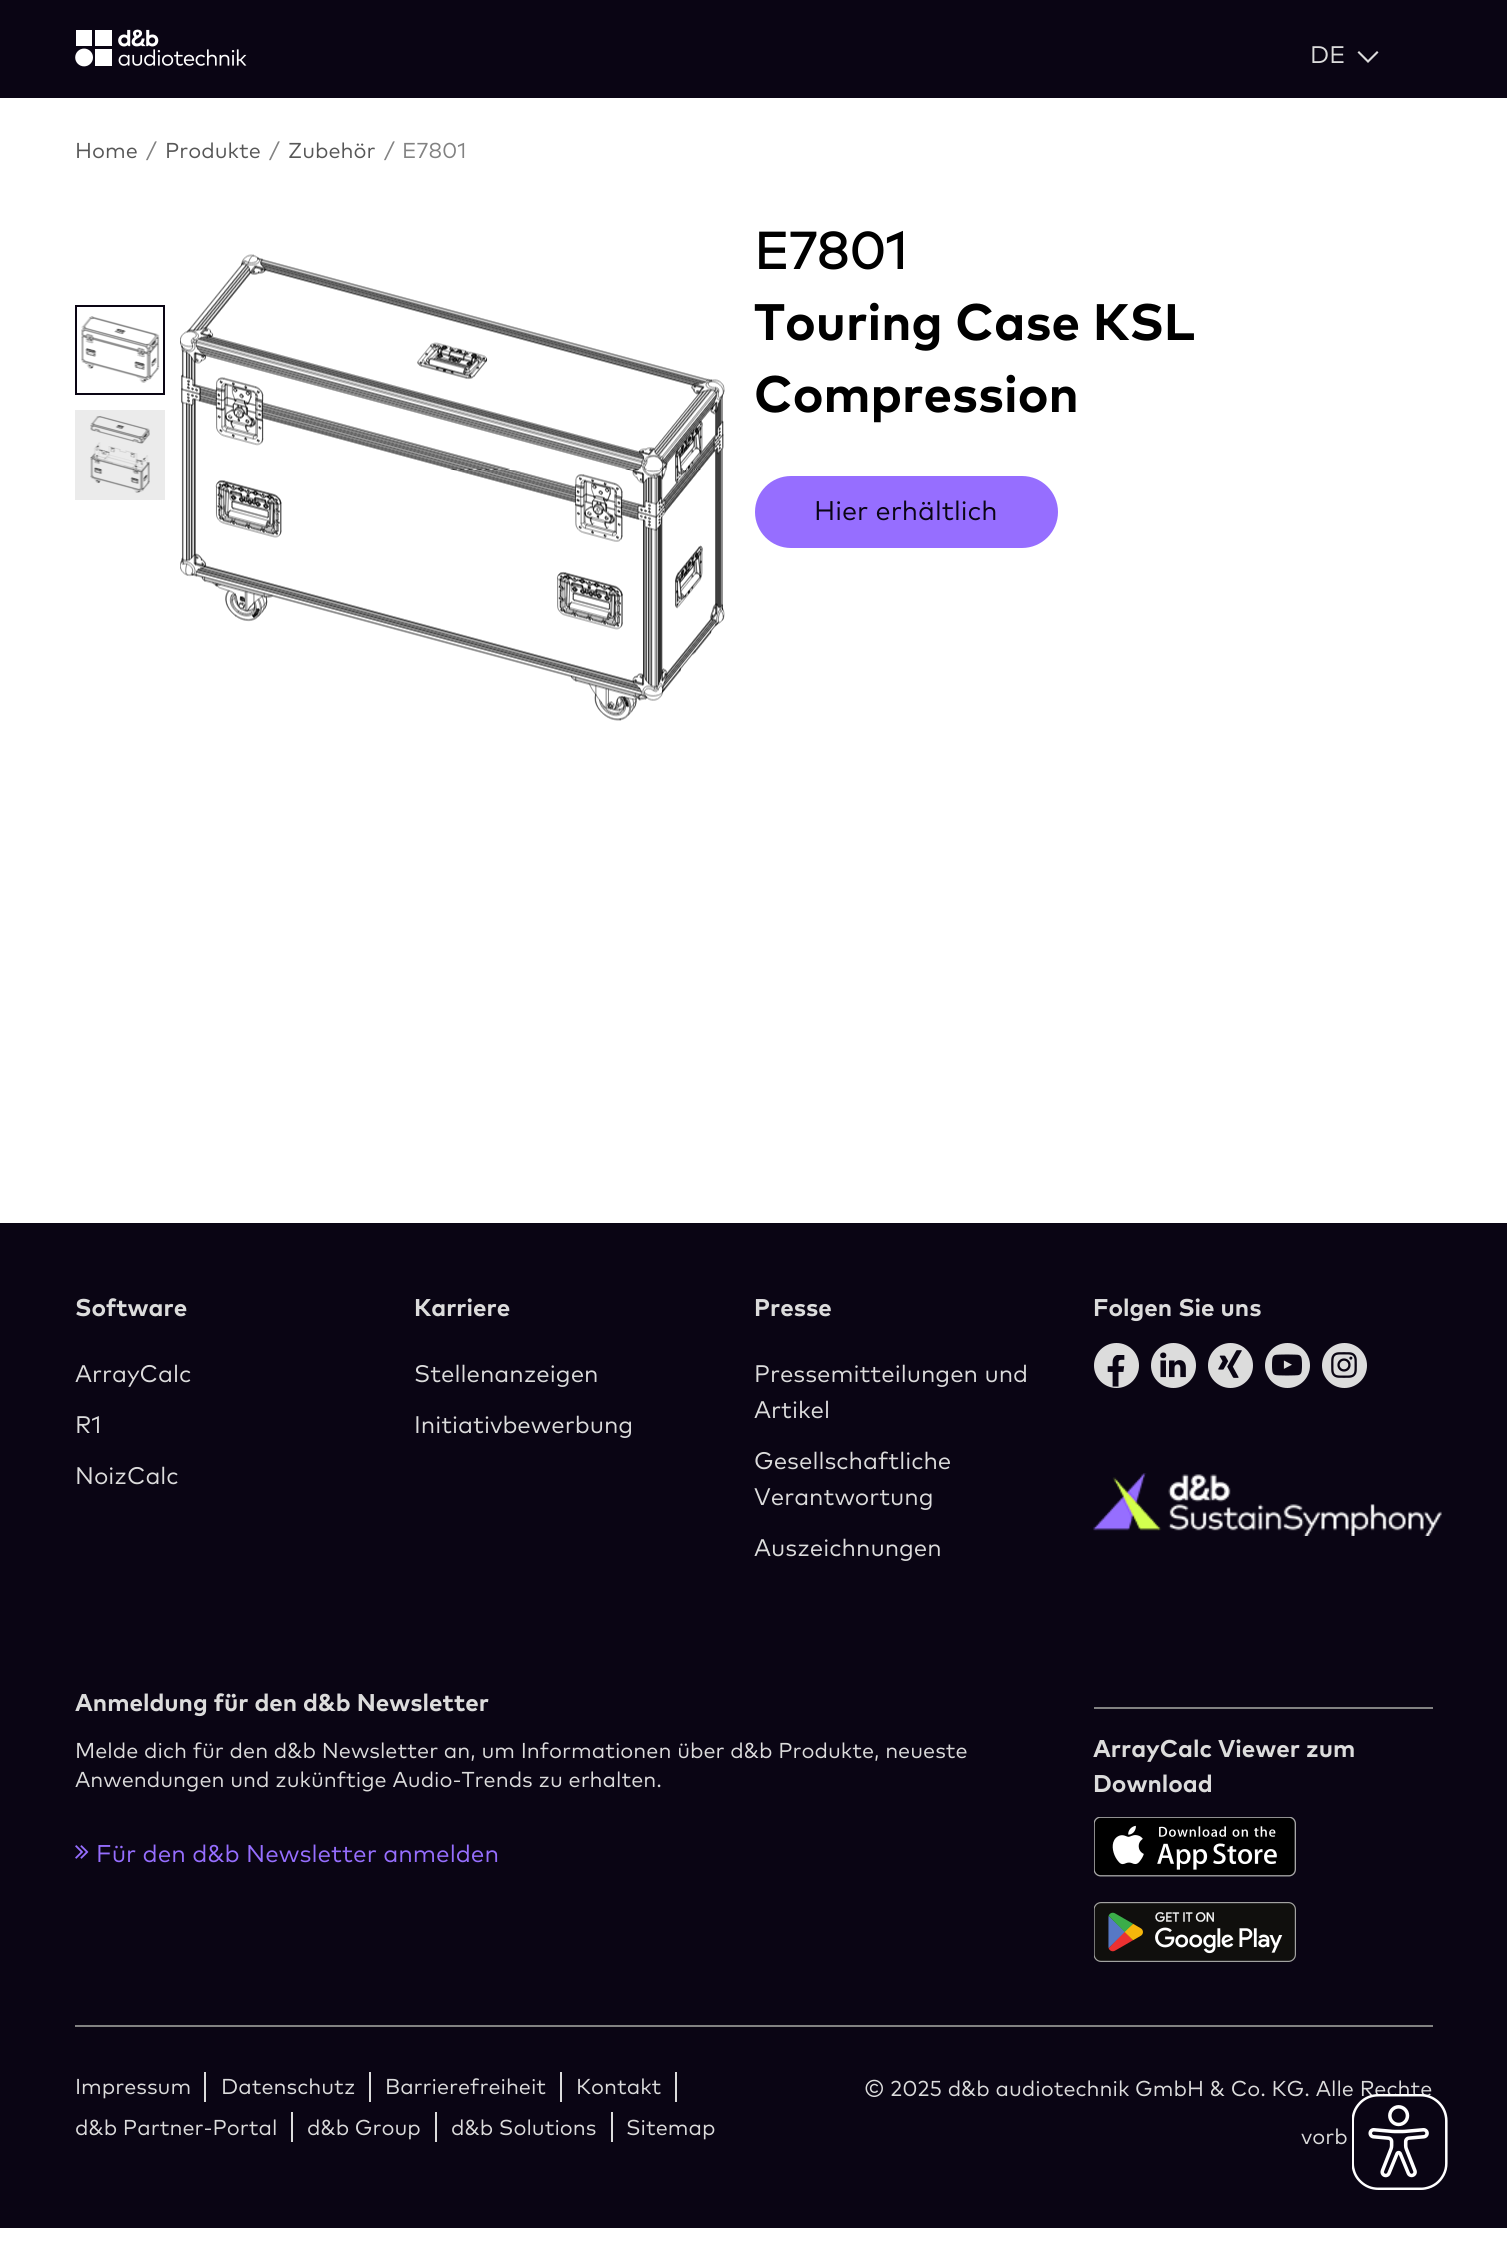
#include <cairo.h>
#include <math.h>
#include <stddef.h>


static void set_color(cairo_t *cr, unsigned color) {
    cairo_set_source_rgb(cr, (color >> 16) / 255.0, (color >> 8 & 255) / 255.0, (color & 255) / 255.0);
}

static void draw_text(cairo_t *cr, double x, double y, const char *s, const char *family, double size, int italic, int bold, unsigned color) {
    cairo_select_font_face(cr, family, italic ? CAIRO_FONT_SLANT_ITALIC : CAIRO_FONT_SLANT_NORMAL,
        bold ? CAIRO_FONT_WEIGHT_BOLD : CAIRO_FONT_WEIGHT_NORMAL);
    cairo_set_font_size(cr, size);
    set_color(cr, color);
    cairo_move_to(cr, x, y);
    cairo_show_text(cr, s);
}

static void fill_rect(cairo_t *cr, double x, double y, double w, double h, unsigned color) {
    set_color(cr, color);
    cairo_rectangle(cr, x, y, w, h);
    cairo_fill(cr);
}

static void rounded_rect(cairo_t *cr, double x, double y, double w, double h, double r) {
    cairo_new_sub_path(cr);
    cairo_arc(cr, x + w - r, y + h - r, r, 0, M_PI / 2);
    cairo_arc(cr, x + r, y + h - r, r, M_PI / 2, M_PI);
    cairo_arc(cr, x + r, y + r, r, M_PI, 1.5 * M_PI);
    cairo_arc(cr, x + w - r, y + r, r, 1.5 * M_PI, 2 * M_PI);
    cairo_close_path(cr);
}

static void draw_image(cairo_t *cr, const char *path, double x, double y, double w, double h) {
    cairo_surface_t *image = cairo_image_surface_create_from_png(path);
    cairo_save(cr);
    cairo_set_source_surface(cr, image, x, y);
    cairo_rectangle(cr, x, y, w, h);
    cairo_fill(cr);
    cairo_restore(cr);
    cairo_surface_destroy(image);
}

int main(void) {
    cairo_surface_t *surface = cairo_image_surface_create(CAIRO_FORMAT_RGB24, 1507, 2250);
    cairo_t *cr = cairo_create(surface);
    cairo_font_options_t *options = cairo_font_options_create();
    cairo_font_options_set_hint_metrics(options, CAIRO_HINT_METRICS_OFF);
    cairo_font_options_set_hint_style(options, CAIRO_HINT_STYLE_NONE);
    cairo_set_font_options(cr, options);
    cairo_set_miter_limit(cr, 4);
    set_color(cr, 0xFFFFFF);
    cairo_paint(cr);
    fill_rect(cr, 0, 0, 1507, 98, 0x0A0514);
    draw_image(cr, "assets/img1.png", 75, 29, 172, 38);
    draw_text(cr, 1310, 63, "DE", "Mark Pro", 24, 0, 0, 0xDCDCDC);
    cairo_new_path(cr);
    cairo_move_to(cr, 1357.5, 52.5);
    cairo_line_to(cr, 1359, 51);
    cairo_line_to(cr, 1368, 60);
    cairo_line_to(cr, 1377, 51);
    cairo_line_to(cr, 1378.5, 52.5);
    cairo_line_to(cr, 1368, 63);
    cairo_close_path(cr);
    cairo_fill(cr);
    draw_text(cr, 75, 158, "Home", "Mark Pro", 21.6, 0, 0, 0x575757);
    draw_text(cr, 146, 158, "/", "Mark Pro", 21.6, 0, 0, 0x828282);
    draw_text(cr, 165, 158, "Produkte", "Mark Pro", 21.6, 0, 0, 0x575757);
    draw_text(cr, 269, 158, "/", "Mark Pro", 21.6, 0, 0, 0x828282);
    draw_text(cr, 288, 158, "Zubehör", "Mark Pro", 21.6, 0, 0, 0x575757);
    draw_text(cr, 384, 158, "/", "Mark Pro", 21.6, 0, 0, 0x828282);
    draw_text(cr, 402, 158, "E7801", "Mark Pro", 21.6, 0, 0, 0x828282);
    cairo_rectangle(cr, 76, 306, 88, 88);
    set_color(cr, 0x0A0514);
    cairo_stroke(cr);
    draw_image(cr, "assets/img2.png", 81, 316, 79, 67);
    fill_rect(cr, 75, 410, 90, 90, 0xEBEBEB);
    draw_image(cr, "assets/img3.png", 90, 416, 60, 77);
    draw_image(cr, "assets/img4.png", 180, 254, 545, 467);
    draw_text(cr, 754, 269, "E7801", "Mark Pro", 51.25, 0, 1, 0x000000);
    draw_text(cr, 754, 340, "Touring Case KSL", "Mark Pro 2", 51.25, 0, 1, 0x000000);
    draw_text(cr, 754, 412, "Compression", "Mark Pro 2", 51.25, 0, 1, 0x000000);
    set_color(cr, 0x966EFF);
    rounded_rect(cr, 755, 476, 303, 72, 36);
    cairo_fill(cr);
    draw_text(cr, 814, 520, "Hier erhältlich", "Mark Pro", 27, 0, 0, 0x0A0514);
    fill_rect(cr, 0, 1223, 1507, 1005, 0x0A0514);
    draw_text(cr, 75, 1316, "Software", "Mark Pro 2", 24.25, 0, 1, 0xDCDCDC);
    draw_text(cr, 75, 1382, "ArrayCalc", "Mark Pro", 24, 0, 0, 0xDCDCDC);
    draw_text(cr, 75, 1433, "R1", "Mark Pro", 24, 0, 0, 0xDCDCDC);
    draw_text(cr, 75, 1484, "NoizCalc", "Mark Pro", 24, 0, 0, 0xDCDCDC);
    draw_text(cr, 414, 1316, "Karriere", "Mark Pro 2", 24.25, 0, 1, 0xDCDCDC);
    draw_text(cr, 414, 1382, "Stellenanzeigen", "Mark Pro", 24, 0, 0, 0xDCDCDC);
    draw_text(cr, 414, 1433, "Initiativbewerbung", "Mark Pro", 24, 0, 0, 0xDCDCDC);
    draw_text(cr, 754, 1316, "Presse", "Mark Pro 2", 24.25, 0, 1, 0xDCDCDC);
    draw_text(cr, 754, 1382, "Pressemitteilungen und", "Mark Pro", 24, 0, 0, 0xDCDCDC);
    draw_text(cr, 754, 1418, "Artikel", "Mark Pro", 24, 0, 0, 0xDCDCDC);
    draw_text(cr, 754, 1469, "Gesellschaftliche", "Mark Pro", 24, 0, 0, 0xDCDCDC);
    draw_text(cr, 754, 1505, "Verantwortung", "Mark Pro", 24, 0, 0, 0xDCDCDC);
    draw_text(cr, 754, 1556, "Auszeichnungen", "Mark Pro", 24, 0, 0, 0xDCDCDC);
    draw_text(cr, 1093, 1316, "Folgen Sie uns", "Mark Pro 2", 24.25, 0, 1, 0xDCDCDC);
    cairo_new_path(cr);
    cairo_arc(cr, 1116.5, 1365.5, 22.5, 0, 2 * M_PI);
    cairo_fill(cr);
    draw_image(cr, "assets/img5.png", 1107, 1355, 18, 32);
    cairo_arc(cr, 1173.5, 1365.5, 22.5, 0, 2 * M_PI);
    cairo_fill(cr);
    draw_image(cr, "assets/img6.png", 1160, 1352, 26, 26);
    cairo_arc(cr, 1230.5, 1365.5, 22.5, 0, 2 * M_PI);
    cairo_fill(cr);
    draw_image(cr, "assets/img7.png", 1218, 1350, 24, 28);
    cairo_arc(cr, 1287.5, 1365.5, 22.5, 0, 2 * M_PI);
    cairo_fill(cr);
    draw_image(cr, "assets/img8.png", 1272, 1354, 30, 22);
    cairo_arc(cr, 1344.5, 1365.5, 22.5, 0, 2 * M_PI);
    cairo_fill(cr);
    draw_image(cr, "assets/img9.png", 1331, 1352, 26, 26);
    draw_image(cr, "assets/img10.png", 1093, 1473, 349, 63);
    draw_text(cr, 75, 1711, "Anmeldung für den d&b Newsletter", "Mark Pro 2", 24.25, 0, 1, 0xDCDCDC);
    draw_text(cr, 75, 1758, "Melde dich für den d&b Newsletter an, um Informationen über d&b Produkte, neueste", "Mark Pro", 21.6, 0, 0, 0xDCDCDC);
    draw_text(cr, 75, 1787, "Anwendungen und zukünftige Audio-Trends zu erhalten.", "Mark Pro", 21.6, 0, 0, 0xDCDCDC);
    draw_image(cr, "assets/img11.png", 75, 1845, 14, 14);
    draw_text(cr, 96, 1862, "Für den d&b Newsletter anmelden", "Mark Pro", 24.25, 0, 0, 0x966EFF);
    fill_rect(cr, 1094, 1707, 339, 2, 0x828282);
    draw_text(cr, 1093, 1757, "ArrayCalc Viewer zum", "Mark Pro 2", 24.25, 0, 1, 0xDCDCDC);
    draw_text(cr, 1093, 1792, "Download", "Mark Pro 2", 24.25, 0, 1, 0xDCDCDC);
    draw_image(cr, "assets/img12.png", 1094, 1817, 202, 60);
    draw_image(cr, "assets/img13.png", 1094, 1902, 202, 60);
    fill_rect(cr, 75, 2025, 1358, 2, 0x828282);
    draw_text(cr, 75, 2094, "Impressum", "Mark Pro", 21.6, 0, 0, 0xDCDCDC);
    fill_rect(cr, 204, 2072, 2, 30, 0xDCDCDC);
    draw_text(cr, 221, 2094, "Datenschutz", "Mark Pro", 21.6, 0, 0, 0xDCDCDC);
    fill_rect(cr, 369, 2072, 2, 30, 0xDCDCDC);
    draw_text(cr, 385, 2094, "Barrierefreiheit", "Mark Pro", 21.6, 0, 0, 0xDCDCDC);
    fill_rect(cr, 560, 2072, 2, 30, 0xDCDCDC);
    draw_text(cr, 576, 2094, "Kontakt", "Mark Pro", 21.6, 0, 0, 0xDCDCDC);
    fill_rect(cr, 675, 2072, 2, 30, 0xDCDCDC);
    draw_text(cr, 75, 2135, "d&b Partner-Portal", "Mark Pro", 21.6, 0, 0, 0xDCDCDC);
    fill_rect(cr, 291, 2112, 2, 30, 0xDCDCDC);
    draw_text(cr, 307, 2135, "d&b Group", "Mark Pro", 21.6, 0, 0, 0xDCDCDC);
    fill_rect(cr, 435, 2112, 2, 30, 0xDCDCDC);
    draw_text(cr, 451, 2135, "d&b Solutions", "Mark Pro", 21.6, 0, 0, 0xDCDCDC);
    fill_rect(cr, 611, 2112, 2, 30, 0xDCDCDC);
    draw_text(cr, 626, 2135, "Sitemap", "Mark Pro", 21.6, 0, 0, 0xDCDCDC);
    draw_text(cr, 864, 2096, "© 2025 d&b audiotechnik GmbH & Co. KG. Alle Rechte", "Mark Pro", 21.6, 0, 0, 0xDCDCDC);
    draw_text(cr, 1301, 2144, "vorb", "Mark Pro", 21.6, 0, 0, 0xDCDCDC);
    draw_image(cr, "assets/img14.png", 1352, 2094, 96, 96);
    cairo_surface_write_to_png(surface, "output.png");
    cairo_font_options_destroy(options);
    cairo_destroy(cr);
    cairo_surface_destroy(surface);
    return 0;
}
